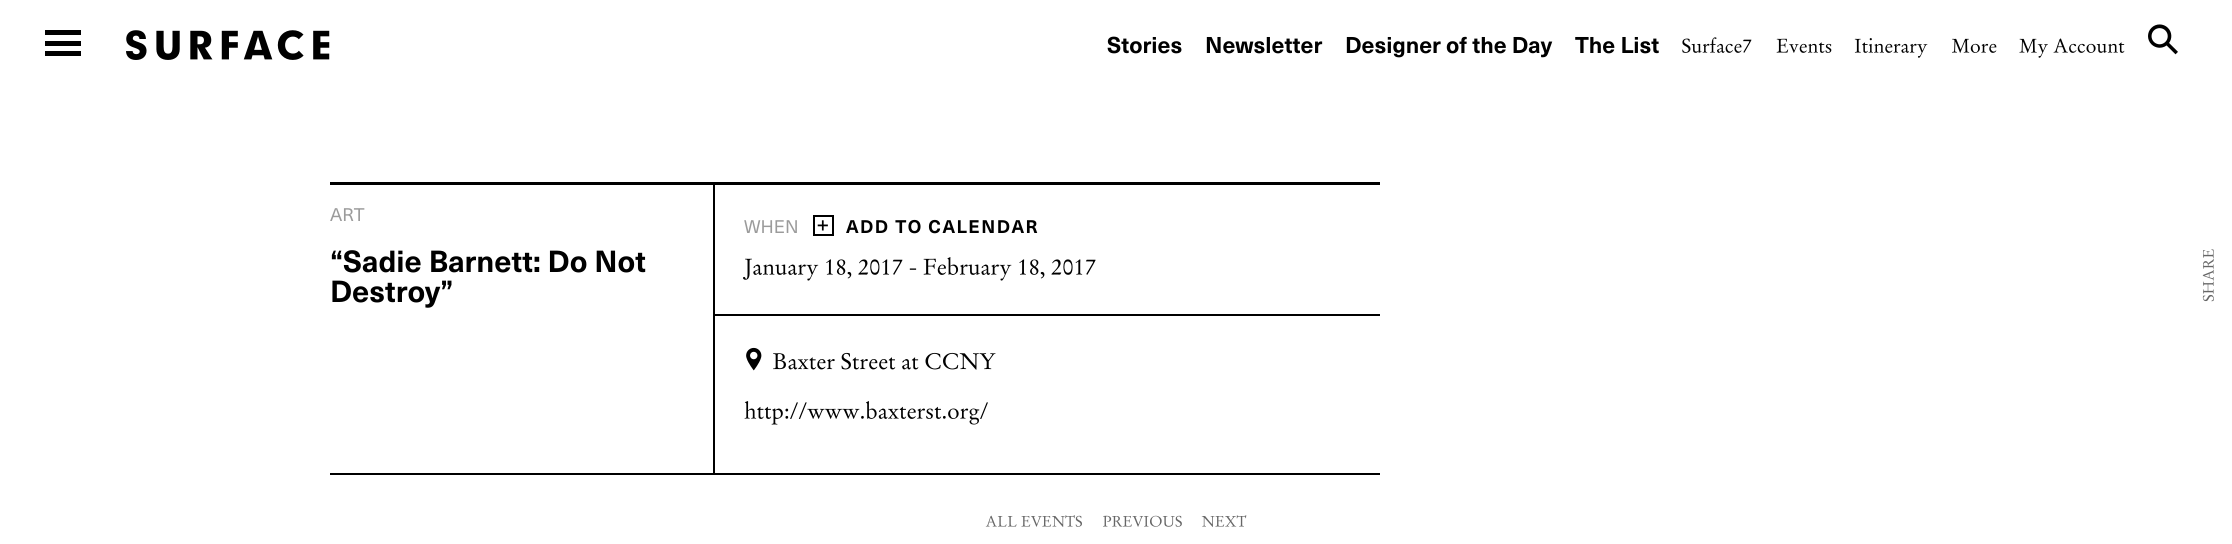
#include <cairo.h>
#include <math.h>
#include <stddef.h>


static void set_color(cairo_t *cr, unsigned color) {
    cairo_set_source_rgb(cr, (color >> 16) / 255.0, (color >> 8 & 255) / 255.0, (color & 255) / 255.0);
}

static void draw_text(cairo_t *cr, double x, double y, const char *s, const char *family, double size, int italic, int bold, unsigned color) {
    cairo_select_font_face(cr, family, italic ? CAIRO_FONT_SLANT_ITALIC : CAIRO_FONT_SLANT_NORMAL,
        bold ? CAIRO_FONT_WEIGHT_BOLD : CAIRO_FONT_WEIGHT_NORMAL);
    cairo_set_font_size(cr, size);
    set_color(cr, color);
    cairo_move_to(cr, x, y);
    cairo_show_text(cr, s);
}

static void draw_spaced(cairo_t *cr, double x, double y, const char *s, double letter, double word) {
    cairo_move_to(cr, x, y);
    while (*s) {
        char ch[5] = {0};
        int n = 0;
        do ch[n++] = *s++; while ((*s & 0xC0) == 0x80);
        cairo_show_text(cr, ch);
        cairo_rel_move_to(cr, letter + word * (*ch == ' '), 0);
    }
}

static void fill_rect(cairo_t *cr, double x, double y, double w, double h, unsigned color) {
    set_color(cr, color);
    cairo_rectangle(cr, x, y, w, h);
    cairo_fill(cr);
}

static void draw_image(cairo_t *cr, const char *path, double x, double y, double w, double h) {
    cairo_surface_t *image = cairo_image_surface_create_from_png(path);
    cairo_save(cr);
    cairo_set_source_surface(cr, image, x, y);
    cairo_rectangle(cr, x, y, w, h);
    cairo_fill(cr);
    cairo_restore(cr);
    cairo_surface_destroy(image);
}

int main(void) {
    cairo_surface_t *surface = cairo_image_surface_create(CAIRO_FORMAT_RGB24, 2232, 544);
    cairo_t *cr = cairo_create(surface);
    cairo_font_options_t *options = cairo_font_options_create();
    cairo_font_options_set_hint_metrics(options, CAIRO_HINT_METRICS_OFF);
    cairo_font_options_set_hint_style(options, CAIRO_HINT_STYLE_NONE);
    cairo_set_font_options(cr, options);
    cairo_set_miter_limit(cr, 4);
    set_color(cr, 0xFFFFFF);
    cairo_paint(cr);
    fill_rect(cr, 45, 30, 36, 5, 0x000000);
    fill_rect(cr, 45, 41, 36, 5, 0x000000);
    fill_rect(cr, 45, 51, 36, 5, 0x000000);
    draw_image(cr, "assets/img1.png", 126, 30, 204, 30);
    draw_text(cr, 1107, 53, "Stories", "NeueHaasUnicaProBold", 22.5, 0, 0, 0x000000);
    draw_text(cr, 1205, 53, "Newsletter", "NeueHaasUnicaProBold", 22.5, 0, 0, 0x000000);
    draw_text(cr, 1345, 53, "Designer of the Day", "NeueHaasUnicaProBold", 22.5, 0, 0, 0x000000);
    draw_text(cr, 1575, 53, "The List", "NeueHaasUnicaProBold", 22.5, 0, 0, 0x000000);
    draw_image(cr, "assets/img2.png", 1682, 37, 70, 16);
    draw_image(cr, "assets/img3.png", 1776, 38, 56, 15);
    draw_image(cr, "assets/img4.png", 1854, 38, 74, 20);
    draw_image(cr, "assets/img5.png", 1952, 38, 45, 15);
    draw_image(cr, "assets/img6.png", 2019, 38, 106, 20);
    draw_image(cr, "assets/img7.png", 2148, 24, 30, 31);
    fill_rect(cr, 330, 182, 1050, 3, 0x000000);
    fill_rect(cr, 330, 473, 1050, 2, 0x000000);
    draw_text(cr, 330, 221, "ART", "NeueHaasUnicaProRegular", 18, 0, 0, 0x9B9B9B);
    draw_text(cr, 330, 272, "“Sadie Barnett: Do Not", "NeueHaasUnicaProBold", 30, 0, 0, 0x000000);
    draw_text(cr, 330, 302, "Destroy”", "NeueHaasUnicaProBold", 30, 0, 0, 0x000000);
    fill_rect(cr, 713, 314, 667, 2, 0x000000);
    fill_rect(cr, 713, 185, 2, 288, 0x000000);
    draw_text(cr, 744, 233, "WHEN", "NeueHaasUnicaProRegular", 18, 0, 0, 0x9B9B9B);
    cairo_rectangle(cr, 814, 216, 19, 19);
    set_color(cr, 0x000000);
    cairo_stroke(cr);
    cairo_set_font_size(cr, 24);
    draw_spaced(cr, 816, 233, "+", 1.5, 0);
    cairo_select_font_face(cr, "NeueHaasUnicaProBold", CAIRO_FONT_SLANT_NORMAL, CAIRO_FONT_WEIGHT_NORMAL);
    cairo_set_font_size(cr, 18);
    draw_spaced(cr, 846, 233, "ADD TO CALENDAR", 1.5, 0);
    draw_image(cr, "assets/img8.png", 743, 257, 353, 24);
    draw_image(cr, "assets/img9.png", 746, 347, 16, 24);
    draw_image(cr, "assets/img10.png", 773, 352, 223, 18);
    draw_image(cr, "assets/img11.png", 744, 401, 244, 24);
    draw_image(cr, "assets/img12.png", 985, 515, 97, 12);
    draw_image(cr, "assets/img13.png", 1103, 515, 79, 12);
    draw_image(cr, "assets/img14.png", 1201, 515, 46, 12);
    draw_image(cr, "assets/img15.png", 2202, 249, 12, 53);
    cairo_surface_write_to_png(surface, "output.png");
    cairo_font_options_destroy(options);
    cairo_destroy(cr);
    cairo_surface_destroy(surface);
    return 0;
}
